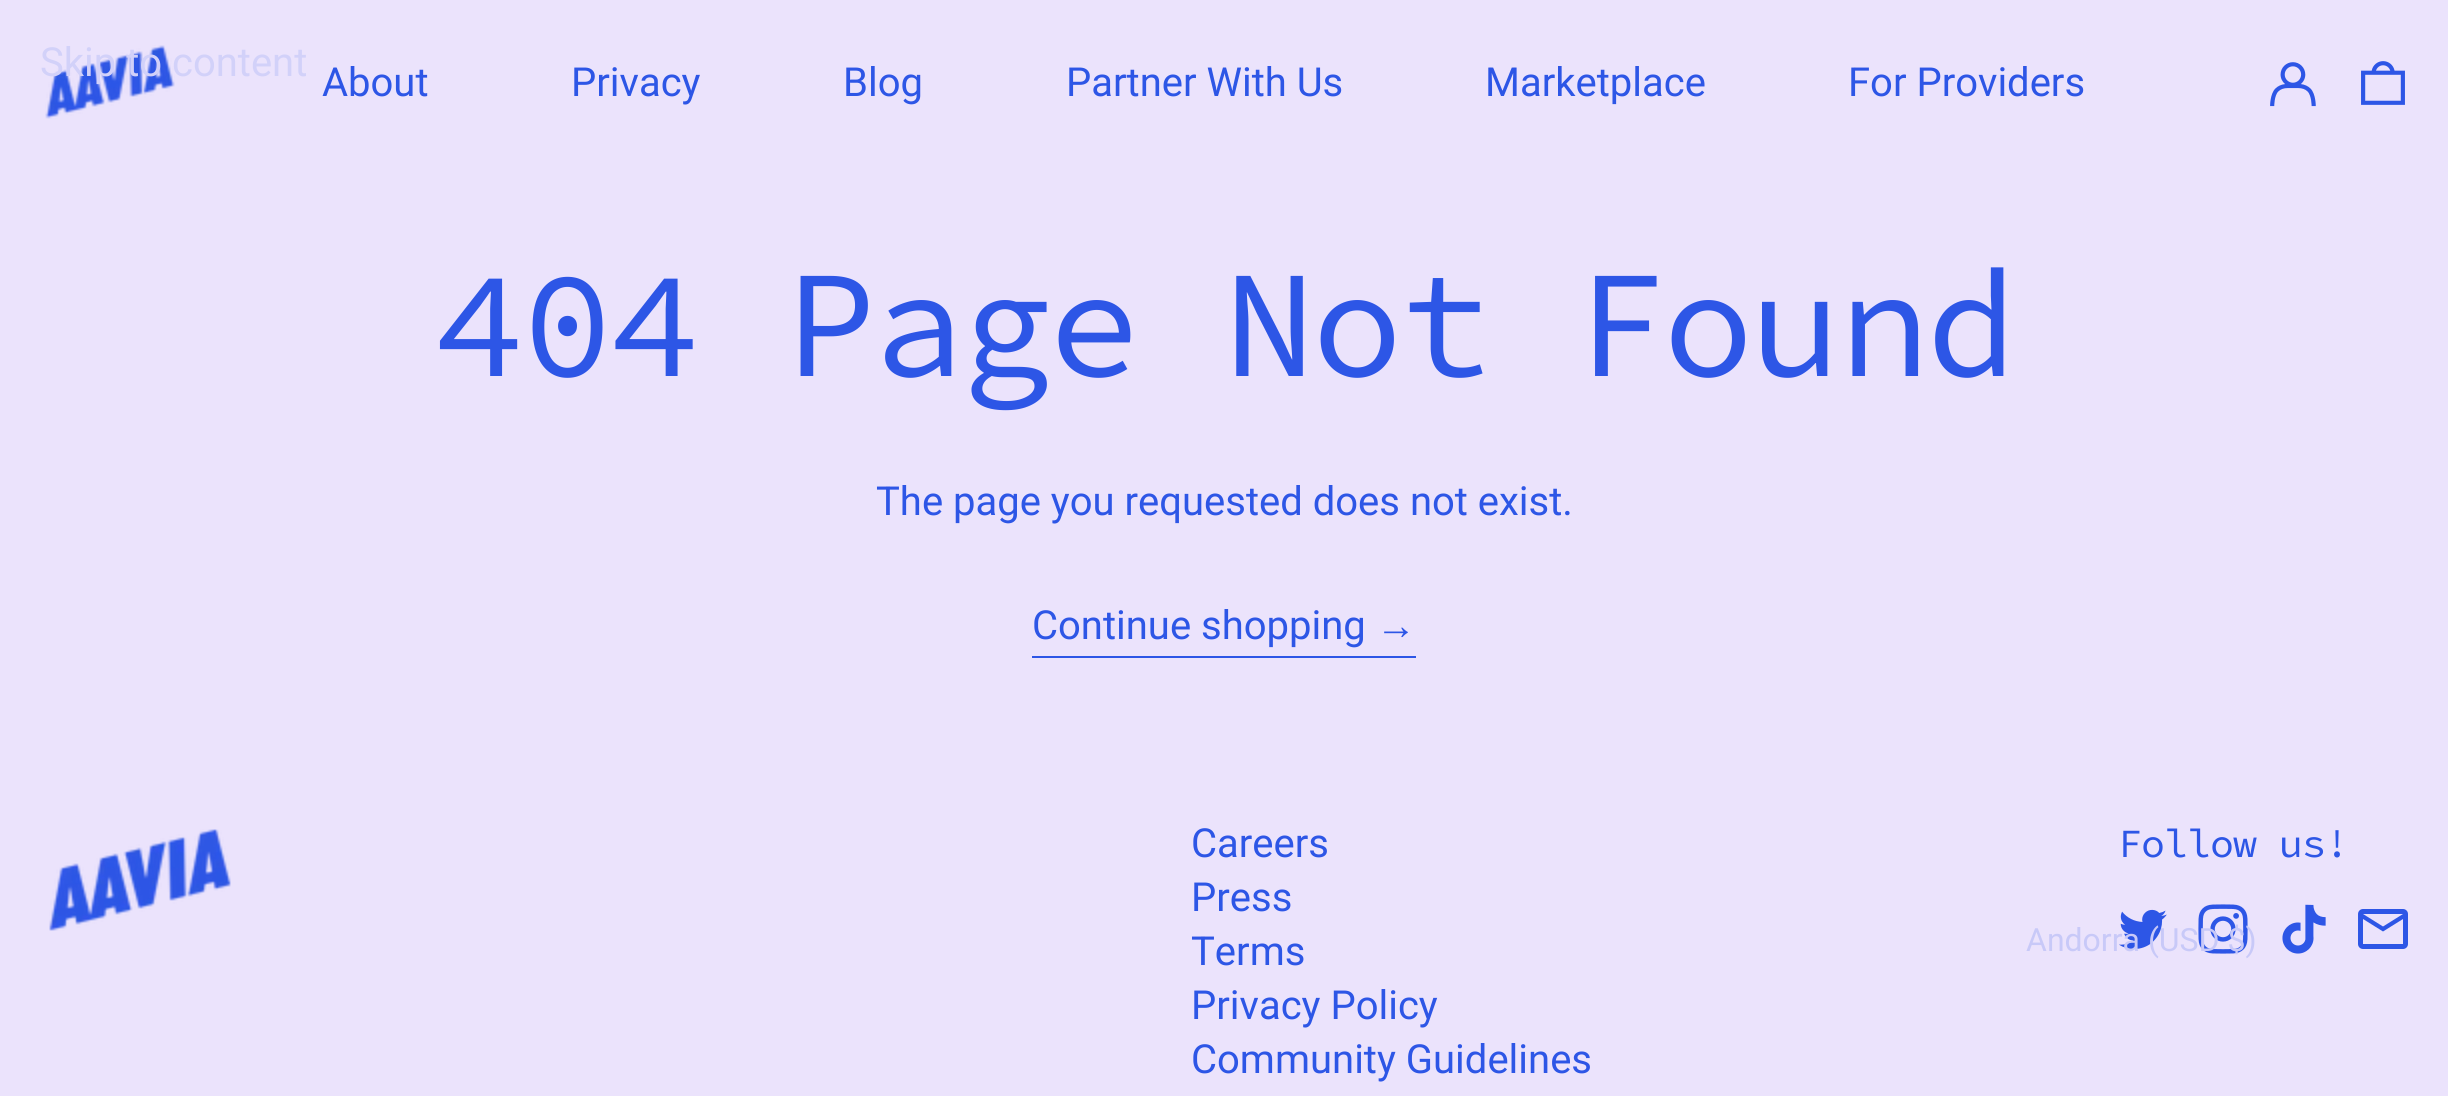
#include <cairo.h>
#include <math.h>
#include <stddef.h>


static void set_color(cairo_t *cr, unsigned color) {
    cairo_set_source_rgb(cr, (color >> 16) / 255.0, (color >> 8 & 255) / 255.0, (color & 255) / 255.0);
}

static void draw_text(cairo_t *cr, double x, double y, const char *s, const char *family, double size, int italic, int bold, unsigned color) {
    cairo_select_font_face(cr, family, italic ? CAIRO_FONT_SLANT_ITALIC : CAIRO_FONT_SLANT_NORMAL,
        bold ? CAIRO_FONT_WEIGHT_BOLD : CAIRO_FONT_WEIGHT_NORMAL);
    cairo_set_font_size(cr, size);
    set_color(cr, color);
    cairo_move_to(cr, x, y);
    cairo_show_text(cr, s);
}

static void draw_spaced(cairo_t *cr, double x, double y, const char *s, double letter, double word) {
    cairo_move_to(cr, x, y);
    while (*s) {
        char ch[5] = {0};
        int n = 0;
        do ch[n++] = *s++; while ((*s & 0xC0) == 0x80);
        cairo_show_text(cr, ch);
        cairo_rel_move_to(cr, letter + word * (*ch == ' '), 0);
    }
}

static void fill_rect(cairo_t *cr, double x, double y, double w, double h, unsigned color) {
    set_color(cr, color);
    cairo_rectangle(cr, x, y, w, h);
    cairo_fill(cr);
}

static void draw_image(cairo_t *cr, const char *path, double x, double y, double w, double h) {
    cairo_surface_t *image = cairo_image_surface_create_from_png(path);
    cairo_save(cr);
    cairo_set_source_surface(cr, image, x, y);
    cairo_rectangle(cr, x, y, w, h);
    cairo_fill(cr);
    cairo_restore(cr);
    cairo_surface_destroy(image);
}

int main(void) {
    cairo_surface_t *surface = cairo_image_surface_create(CAIRO_FORMAT_RGB24, 2448, 1096);
    cairo_t *cr = cairo_create(surface);
    cairo_font_options_t *options = cairo_font_options_create();
    cairo_font_options_set_hint_metrics(options, CAIRO_HINT_METRICS_OFF);
    cairo_font_options_set_hint_style(options, CAIRO_HINT_STYLE_NONE);
    cairo_set_font_options(cr, options);
    cairo_set_miter_limit(cr, 4);
    set_color(cr, 0xEBE3FC);
    cairo_paint(cr);
    draw_image(cr, "assets/img1.png", 45, 45, 130, 74);
    draw_text(cr, 40, 76, "Skip to content", "Roboto", 40, 0, 0, 0xD2D1F9);
    draw_text(cr, 322, 96, "About", "Roboto", 40, 0, 0, 0x2D56E6);
    draw_text(cr, 571, 96, "Privacy", "Roboto", 40, 0, 0, 0x2D56E6);
    draw_text(cr, 843, 96, "Blog", "Roboto", 40, 0, 0, 0x2D56E6);
    draw_text(cr, 1066, 96, "Partner With Us", "Roboto", 40, 0, 0, 0x2D56E6);
    draw_text(cr, 1485, 96, "Marketplace", "Roboto", 40, 0, 0, 0x2D56E6);
    draw_text(cr, 1848, 96, "For Providers", "Roboto", 40, 0, 0, 0x2D56E6);
    draw_image(cr, "assets/img2.png", 2270, 62, 46, 45);
    draw_image(cr, "assets/img3.png", 2361, 61, 44, 44);
    cairo_select_font_face(cr, "Source Code Pro", CAIRO_FONT_SLANT_NORMAL, CAIRO_FONT_WEIGHT_NORMAL);
    cairo_set_font_size(cr, 152.6);
    draw_spaced(cr, 434, 376, "404 Page Not Found", -3.8, 0);
    draw_text(cr, 876, 515, "The page you requested does not exist.", "Roboto", 40, 0, 0, 0x2D56E6);
    fill_rect(cr, 1032, 656, 384, 2, 0x2D56E6);
    draw_text(cr, 1032, 639, "Continue shopping", "Roboto", 40, 0, 0, 0x2D56E6);
    draw_text(cr, 1376, 639, "→", "Liberation Sans", 40, 0, 0, 0x2D56E6);
    draw_image(cr, "assets/img4.png", 49, 829, 182, 102);
    draw_text(cr, 1191, 857, "Careers", "Roboto", 40, 0, 0, 0x2D56E6);
    draw_text(cr, 1191, 911, "Press", "Roboto", 40, 0, 0, 0x2D56E6);
    draw_text(cr, 1191, 965, "Terms", "Roboto", 40, 0, 0, 0x2D56E6);
    draw_text(cr, 1191, 1019, "Privacy Policy", "Roboto", 40, 0, 0, 0x2D56E6);
    draw_text(cr, 1191, 1073, "Community Guidelines", "Roboto", 40, 0, 0, 0x2D56E6);
    cairo_select_font_face(cr, "Source Code Pro", CAIRO_FONT_SLANT_NORMAL, CAIRO_FONT_WEIGHT_NORMAL);
    draw_spaced(cr, 2118, 857, "Follow us!", -1, 0);
    draw_image(cr, "assets/img5.png", 2119, 909, 48, 40);
    draw_image(cr, "assets/img6.png", 2198, 904, 50, 50);
    draw_image(cr, "assets/img7.png", 2282, 904, 44, 50);
    draw_image(cr, "assets/img8.png", 2358, 909, 50, 40);
    draw_text(cr, 2026, 951, "Andorra (USD $)", "Roboto", 32, 0, 0, 0xC8C9F8);
    cairo_surface_write_to_png(surface, "output.png");
    cairo_font_options_destroy(options);
    cairo_destroy(cr);
    cairo_surface_destroy(surface);
    return 0;
}
